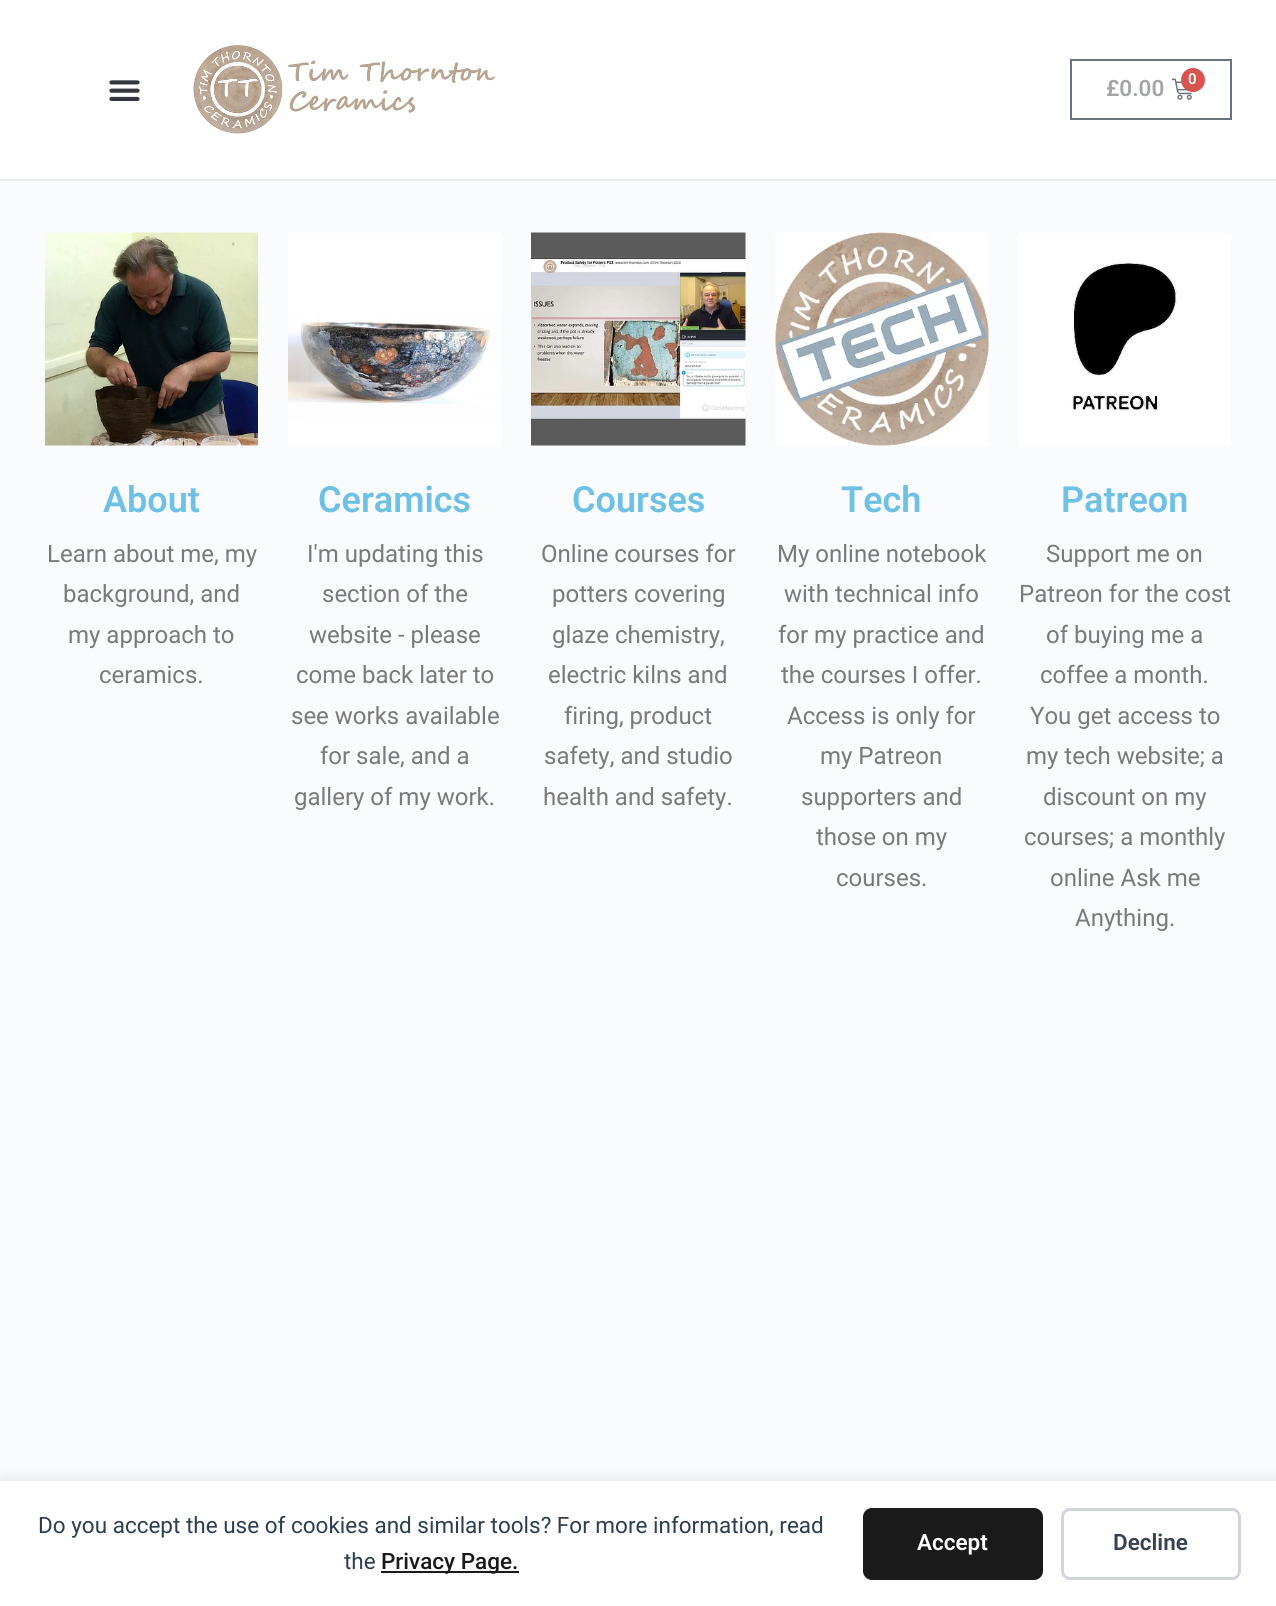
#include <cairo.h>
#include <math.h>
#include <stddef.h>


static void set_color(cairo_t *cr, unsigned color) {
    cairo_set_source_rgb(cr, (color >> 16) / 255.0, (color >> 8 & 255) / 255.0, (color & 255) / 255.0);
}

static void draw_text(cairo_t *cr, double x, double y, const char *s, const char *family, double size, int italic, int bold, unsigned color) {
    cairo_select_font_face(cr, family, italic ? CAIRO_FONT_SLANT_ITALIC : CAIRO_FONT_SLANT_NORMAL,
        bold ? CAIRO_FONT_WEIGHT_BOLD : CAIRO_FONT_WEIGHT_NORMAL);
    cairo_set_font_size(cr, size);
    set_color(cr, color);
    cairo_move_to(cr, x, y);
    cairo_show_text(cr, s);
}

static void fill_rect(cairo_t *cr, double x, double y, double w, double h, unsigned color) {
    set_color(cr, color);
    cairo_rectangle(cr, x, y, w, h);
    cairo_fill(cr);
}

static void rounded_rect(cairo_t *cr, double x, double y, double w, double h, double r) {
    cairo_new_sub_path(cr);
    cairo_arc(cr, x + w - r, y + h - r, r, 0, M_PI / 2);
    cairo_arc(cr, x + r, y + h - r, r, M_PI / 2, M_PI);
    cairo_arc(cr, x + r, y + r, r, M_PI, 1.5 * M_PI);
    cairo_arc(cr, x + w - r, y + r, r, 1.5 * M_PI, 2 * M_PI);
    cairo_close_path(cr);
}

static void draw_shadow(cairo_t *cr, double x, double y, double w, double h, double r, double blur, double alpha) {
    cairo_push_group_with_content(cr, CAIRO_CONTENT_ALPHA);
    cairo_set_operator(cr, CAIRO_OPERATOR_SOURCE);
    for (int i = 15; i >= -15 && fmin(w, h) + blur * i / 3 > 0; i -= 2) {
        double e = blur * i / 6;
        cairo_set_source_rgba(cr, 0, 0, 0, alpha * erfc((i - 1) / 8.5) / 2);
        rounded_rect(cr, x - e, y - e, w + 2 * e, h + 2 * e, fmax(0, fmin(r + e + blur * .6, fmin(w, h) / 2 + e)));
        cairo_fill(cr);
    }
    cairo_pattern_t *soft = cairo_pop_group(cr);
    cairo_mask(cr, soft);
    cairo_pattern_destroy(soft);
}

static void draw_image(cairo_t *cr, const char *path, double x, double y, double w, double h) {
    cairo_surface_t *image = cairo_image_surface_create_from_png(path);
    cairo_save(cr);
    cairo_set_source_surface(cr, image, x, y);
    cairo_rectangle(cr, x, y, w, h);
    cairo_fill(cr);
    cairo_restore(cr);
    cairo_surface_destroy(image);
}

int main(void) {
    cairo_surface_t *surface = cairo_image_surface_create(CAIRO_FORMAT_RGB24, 1276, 1606);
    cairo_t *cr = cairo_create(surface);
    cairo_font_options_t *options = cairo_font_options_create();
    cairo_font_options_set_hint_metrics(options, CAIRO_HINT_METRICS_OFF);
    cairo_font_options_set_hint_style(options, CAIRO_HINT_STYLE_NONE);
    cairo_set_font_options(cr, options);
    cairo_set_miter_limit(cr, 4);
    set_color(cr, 0xFAFBFD);
    cairo_paint(cr);
    fill_rect(cr, 0, 0, 1276, 179, 0xFFFFFF);
    fill_rect(cr, 0, 179, 1276, 2, 0xE7E9EC);
    draw_image(cr, "assets/img1.png", 109, 80, 31, 21);
    draw_image(cr, "assets/img2.png", 193, 45, 302, 89);
    cairo_rectangle(cr, 1071, 60, 160, 59);
    set_color(cr, 0x69727D);
    cairo_stroke(cr);
    draw_text(cr, 1106, 96, "£0.00", "Roboto SemiBold", 22.5, 0, 0, 0xA3A5A9);
    draw_image(cr, "assets/img3.png", 1172, 78, 20, 22);
    set_color(cr, 0xD9534F);
    cairo_arc(cr, 1193, 80, 12, 0, 2 * M_PI);
    cairo_fill(cr);
    draw_text(cr, 1188, 84, "0", "Roboto SemiBold", 15, 0, 0, 0xFFFFFF);
    draw_image(cr, "assets/img4.png", 45, 232, 213, 214);
    draw_text(cr, 103, 512, "About", "Roboto SemiBold", 36, 0, 0, 0x6EC1E4);
    draw_text(cr, 47, 562, "Learn about me, my", "Roboto", 24, 0, 0, 0x7A7A7A);
    draw_text(cr, 63, 602, "background, and", "Roboto", 24, 0, 0, 0x7A7A7A);
    draw_text(cr, 68, 643, "my approach to", "Roboto", 24, 0, 0, 0x7A7A7A);
    draw_text(cr, 99, 683, "ceramics.", "Roboto", 24, 0, 0, 0x7A7A7A);
    draw_image(cr, "assets/img5.png", 288, 233, 213, 212);
    draw_text(cr, 318, 512, "Ceramics", "Roboto SemiBold", 36, 0, 0, 0x6EC1E4);
    draw_text(cr, 307, 562, "I'm updating this", "Roboto", 24, 0, 0, 0x7A7A7A);
    draw_text(cr, 322, 602, "section of the", "Roboto", 24, 0, 0, 0x7A7A7A);
    draw_text(cr, 309, 643, "website - please", "Roboto", 24, 0, 0, 0x7A7A7A);
    draw_text(cr, 296, 683, "come back later to", "Roboto", 24, 0, 0, 0x7A7A7A);
    draw_text(cr, 291, 724, "see works available", "Roboto", 24, 0, 0, 0x7A7A7A);
    draw_text(cr, 320, 764, "for sale, and a", "Roboto", 24, 0, 0, 0x7A7A7A);
    draw_text(cr, 294, 805, "gallery of my work.", "Roboto", 24, 0, 0, 0x7A7A7A);
    draw_image(cr, "assets/img6.png", 531, 232, 215, 214);
    draw_text(cr, 572, 512, "Courses", "Roboto SemiBold", 36, 0, 0, 0x6EC1E4);
    draw_text(cr, 541, 562, "Online courses for", "Roboto", 24, 0, 0, 0x7A7A7A);
    draw_text(cr, 552, 602, "potters covering", "Roboto", 24, 0, 0, 0x7A7A7A);
    draw_text(cr, 552, 643, "glaze chemistry,", "Roboto", 24, 0, 0, 0x7A7A7A);
    draw_text(cr, 548, 683, "electric kilns and", "Roboto", 24, 0, 0, 0x7A7A7A);
    draw_text(cr, 564, 724, "firing, product", "Roboto", 24, 0, 0, 0x7A7A7A);
    draw_text(cr, 544, 764, "safety, and studio", "Roboto", 24, 0, 0, 0x7A7A7A);
    draw_text(cr, 543, 805, "health and safety.", "Roboto", 24, 0, 0, 0x7A7A7A);
    draw_image(cr, "assets/img7.png", 775, 232, 214, 214);
    draw_text(cr, 841, 512, "Tech", "Roboto SemiBold", 36, 0, 0, 0x6EC1E4);
    draw_text(cr, 777, 562, "My online notebook", "Roboto", 24, 0, 0, 0x7A7A7A);
    draw_text(cr, 784, 602, "with technical info", "Roboto", 24, 0, 0, 0x7A7A7A);
    draw_text(cr, 778, 643, "for my practice and", "Roboto", 24, 0, 0, 0x7A7A7A);
    draw_text(cr, 781, 683, "the courses I offer.", "Roboto", 24, 0, 0, 0x7A7A7A);
    draw_text(cr, 787, 724, "Access is only for", "Roboto", 24, 0, 0, 0x7A7A7A);
    draw_text(cr, 820, 764, "my Patreon", "Roboto", 24, 0, 0, 0x7A7A7A);
    draw_text(cr, 801, 805, "supporters and", "Roboto", 24, 0, 0, 0x7A7A7A);
    draw_text(cr, 816, 845, "those on my", "Roboto", 24, 0, 0, 0x7A7A7A);
    draw_text(cr, 836, 886, "courses.", "Roboto", 24, 0, 0, 0x7A7A7A);
    draw_image(cr, "assets/img8.png", 1019, 233, 212, 212);
    draw_text(cr, 1061, 512, "Patreon", "Roboto SemiBold", 36, 0, 0, 0x6EC1E4);
    draw_text(cr, 1046, 562, "Support me on", "Roboto", 24, 0, 0, 0x7A7A7A);
    draw_text(cr, 1019, 602, "Patreon for the cost", "Roboto", 24, 0, 0, 0x7A7A7A);
    draw_text(cr, 1046, 643, "of buying me a", "Roboto", 24, 0, 0, 0x7A7A7A);
    draw_text(cr, 1040, 683, "coffee a month.", "Roboto", 24, 0, 0, 0x7A7A7A);
    draw_text(cr, 1030, 724, "You get access to", "Roboto", 24, 0, 0, 0x7A7A7A);
    draw_text(cr, 1026, 764, "my tech website; a", "Roboto", 24, 0, 0, 0x7A7A7A);
    draw_text(cr, 1043, 805, "discount on my", "Roboto", 24, 0, 0, 0x7A7A7A);
    draw_text(cr, 1024, 845, "courses; a monthly", "Roboto", 24, 0, 0, 0x7A7A7A);
    draw_text(cr, 1050, 886, "online Ask me", "Roboto", 24, 0, 0, 0x7A7A7A);
    draw_text(cr, 1075, 926, "Anything.", "Roboto", 24, 0, 0, 0x7A7A7A);
    set_color(cr, 0x000000);
    draw_shadow(cr, 0, 1478, 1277, 126, 0, 7.5, 0.08);
    fill_rect(cr, 0, 1481, 1276, 125, 0xFFFFFF);
    draw_text(cr, 38, 1533, "Do you accept the use of cookies and similar tools? For more information, read", "Roboto", 22.5, 0, 0, 0x2C3E50);
    draw_text(cr, 344, 1569, "the", "Roboto", 22.5, 0, 0, 0x2C3E50);
    fill_rect(cr, 381, 1571, 138, 2, 0x1A1A1A);
    draw_text(cr, 381, 1569, "Privacy Page.", "Roboto Medium", 22.5, 0, 0, 0x1A1A1A);
    rounded_rect(cr, 863, 1508, 180, 72, 9);
    cairo_fill(cr);
    draw_text(cr, 917, 1550, "Accept", "Roboto SemiBold", 22.5, 0, 0, 0xFFFFFF);
    rounded_rect(cr, 1062.5, 1509.5, 177, 69, 7.5);
    set_color(cr, 0xD1D5DB);
    cairo_set_line_width(cr, 3);
    cairo_stroke(cr);
    draw_text(cr, 1113, 1550, "Decline", "Roboto SemiBold", 22.5, 0, 0, 0x374151);
    cairo_surface_write_to_png(surface, "output.png");
    cairo_font_options_destroy(options);
    cairo_destroy(cr);
    cairo_surface_destroy(surface);
    return 0;
}
